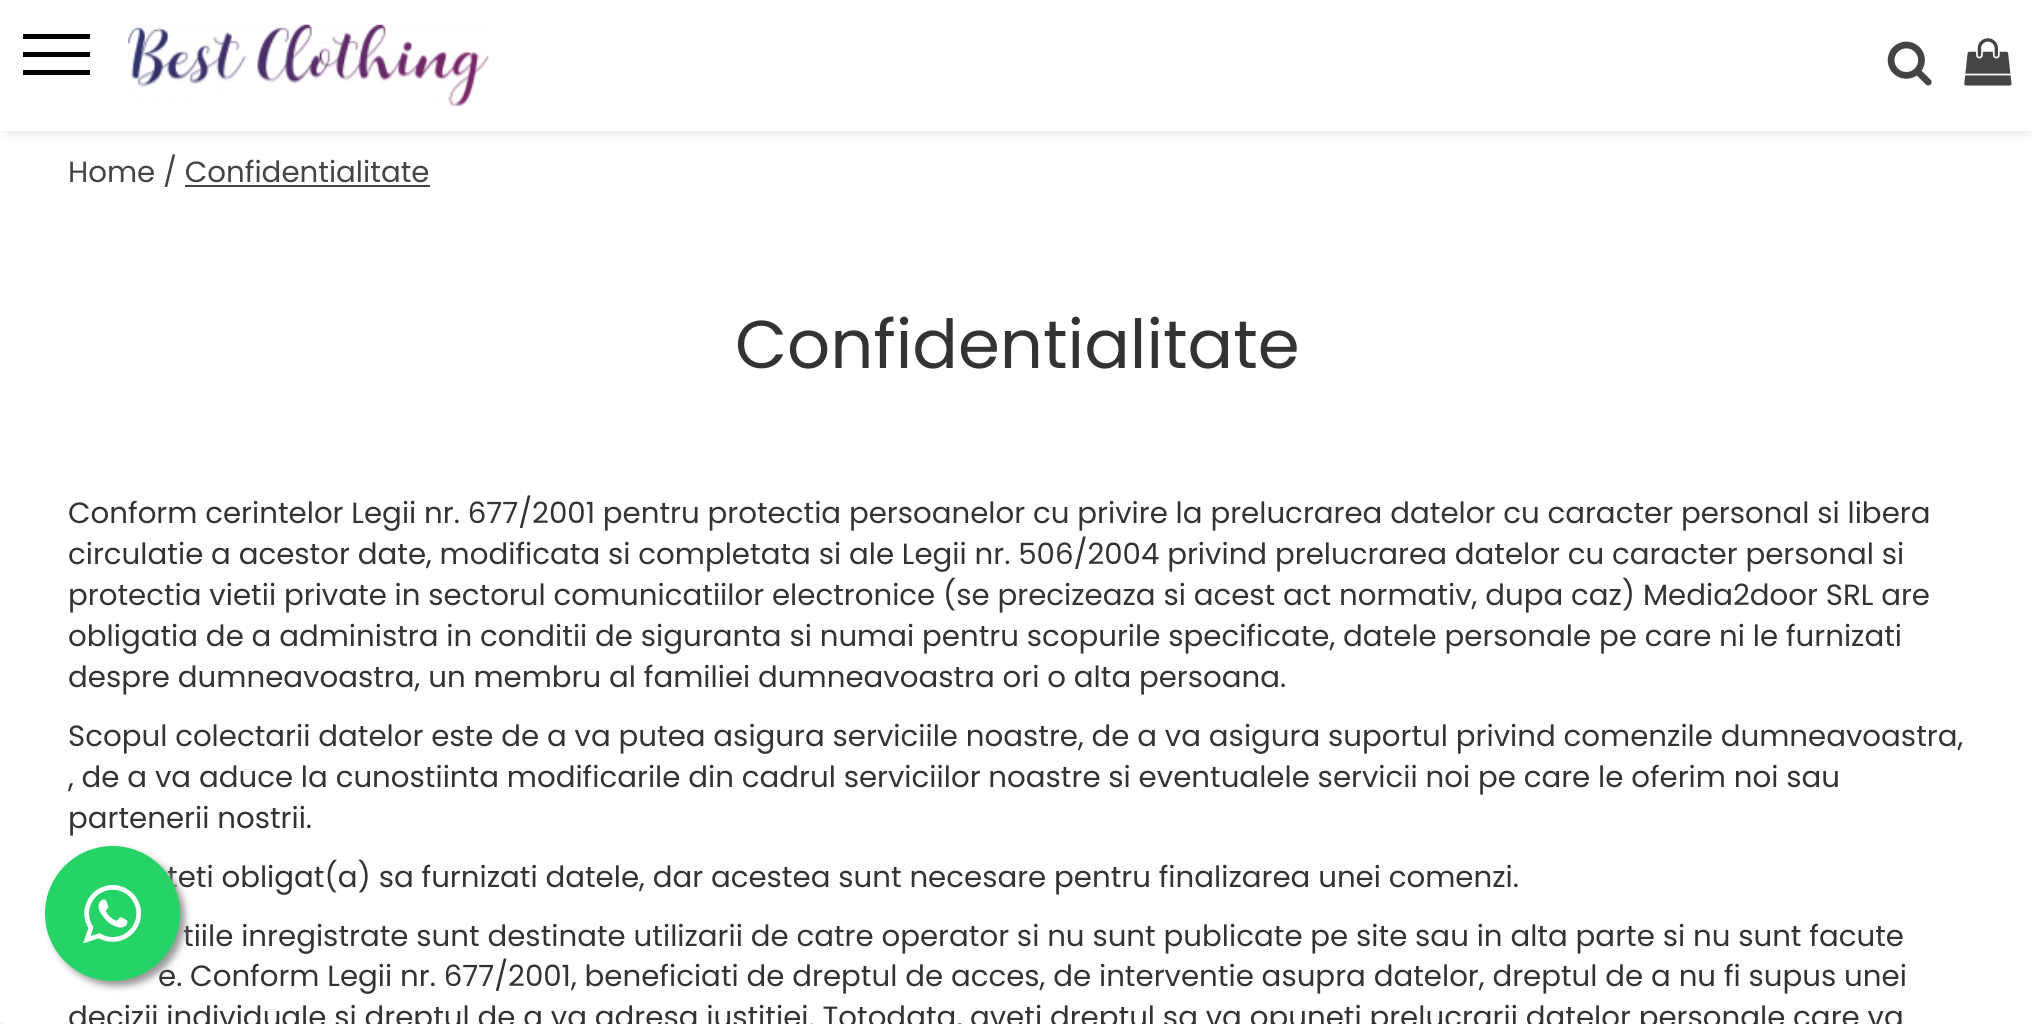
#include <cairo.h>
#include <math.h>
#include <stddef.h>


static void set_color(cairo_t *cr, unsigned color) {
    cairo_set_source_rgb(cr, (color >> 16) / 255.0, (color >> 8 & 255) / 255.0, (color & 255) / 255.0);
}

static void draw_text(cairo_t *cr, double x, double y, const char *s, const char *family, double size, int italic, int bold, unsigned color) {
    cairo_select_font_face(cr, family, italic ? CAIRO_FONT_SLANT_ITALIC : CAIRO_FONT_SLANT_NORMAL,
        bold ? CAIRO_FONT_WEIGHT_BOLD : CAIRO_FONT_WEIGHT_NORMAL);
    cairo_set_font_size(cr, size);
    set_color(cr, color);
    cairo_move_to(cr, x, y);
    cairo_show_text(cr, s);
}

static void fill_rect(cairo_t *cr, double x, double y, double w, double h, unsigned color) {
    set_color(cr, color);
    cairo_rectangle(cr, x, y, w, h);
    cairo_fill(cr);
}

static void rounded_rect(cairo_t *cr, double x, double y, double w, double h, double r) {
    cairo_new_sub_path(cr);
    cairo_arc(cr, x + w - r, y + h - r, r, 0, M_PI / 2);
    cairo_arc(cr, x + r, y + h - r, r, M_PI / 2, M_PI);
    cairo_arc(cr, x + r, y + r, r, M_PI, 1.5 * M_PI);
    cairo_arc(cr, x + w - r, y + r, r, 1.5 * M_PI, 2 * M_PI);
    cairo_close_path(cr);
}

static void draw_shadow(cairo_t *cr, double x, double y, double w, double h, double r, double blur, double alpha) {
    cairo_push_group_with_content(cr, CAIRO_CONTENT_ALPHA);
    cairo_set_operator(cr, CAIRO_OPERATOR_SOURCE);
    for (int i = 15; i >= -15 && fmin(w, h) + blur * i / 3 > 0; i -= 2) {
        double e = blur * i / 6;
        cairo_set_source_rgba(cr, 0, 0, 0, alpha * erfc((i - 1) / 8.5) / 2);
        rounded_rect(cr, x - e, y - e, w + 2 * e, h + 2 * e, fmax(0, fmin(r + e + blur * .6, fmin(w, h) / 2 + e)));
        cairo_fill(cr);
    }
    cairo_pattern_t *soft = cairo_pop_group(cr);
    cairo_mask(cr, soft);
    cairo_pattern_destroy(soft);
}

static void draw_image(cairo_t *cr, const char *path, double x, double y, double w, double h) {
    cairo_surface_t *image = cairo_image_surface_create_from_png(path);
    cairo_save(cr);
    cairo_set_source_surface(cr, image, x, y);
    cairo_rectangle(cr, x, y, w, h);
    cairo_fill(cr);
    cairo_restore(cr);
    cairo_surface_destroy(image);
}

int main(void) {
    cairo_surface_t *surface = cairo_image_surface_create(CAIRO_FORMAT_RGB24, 2033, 1024);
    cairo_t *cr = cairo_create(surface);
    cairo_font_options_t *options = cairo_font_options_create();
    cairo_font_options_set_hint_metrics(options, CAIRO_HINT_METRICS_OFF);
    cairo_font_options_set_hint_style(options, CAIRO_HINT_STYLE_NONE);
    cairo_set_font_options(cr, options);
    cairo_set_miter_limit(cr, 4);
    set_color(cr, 0xFFFFFF);
    cairo_paint(cr);
    set_color(cr, 0x000000);
    draw_shadow(cr, 9, 14, 2016, 112, 0, 8, 0.3);
    fill_rect(cr, 0, 0, 2033, 131, 0xFFFFFF);
    fill_rect(cr, 23, 52, 67, 5, 0x000000);
    fill_rect(cr, 23, 34, 67, 5, 0x000000);
    fill_rect(cr, 23, 70, 67, 5, 0x000000);
    draw_image(cr, "assets/img1.png", 128, 24, 361, 82);
    draw_image(cr, "assets/img2.png", 1887, 41, 45, 45);
    draw_image(cr, "assets/img3.png", 1964, 38, 48, 48);
    draw_text(cr, 68, 182, "Home / Confidentialitate", "Poppins", 29.25, 0, 0, 0x444444);
    fill_rect(cr, 185, 185, 245, 2, 0x444444);
    draw_text(cr, 735, 368, "Confidentialitate", "Poppins", 67.5, 0, 0, 0x333333);
    draw_text(cr, 68, 523, "Conform cerintelor Legii nr. 677/2001 pentru protectia persoanelor cu privire la prelucrarea datelor cu caracter personal si libera", "Poppins", 29.25, 0, 0, 0x333333);
    draw_text(cr, 68, 564, "circulatie a acestor date, modificata si completata si ale Legii nr. 506/2004 privind prelucrarea datelor cu caracter personal si", "Poppins", 29.25, 0, 0, 0x333333);
    draw_text(cr, 68, 605, "protectia vietii private in sectorul comunicatiilor electronice (se precizeaza si acest act normativ, dupa caz) Media2door SRL are", "Poppins", 29.25, 0, 0, 0x333333);
    draw_text(cr, 68, 646, "obligatia de a administra in conditii de siguranta si numai pentru scopurile specificate, datele personale pe care ni le furnizati", "Poppins", 29.25, 0, 0, 0x333333);
    draw_text(cr, 68, 687, "despre dumneavoastra, un membru al familiei dumneavoastra ori o alta persoana.", "Poppins", 29.25, 0, 0, 0x333333);
    draw_text(cr, 68, 746, "Scopul colectarii datelor este de a va putea asigura serviciile noastre, de a va asigura suportul privind comenzile dumneavoastra,", "Poppins", 29.25, 0, 0, 0x333333);
    draw_text(cr, 68, 787, ", de a va aduce la cunostiinta modificarile din cadrul serviciilor noastre si eventualele servicii noi pe care le oferim noi sau", "Poppins", 29.25, 0, 0, 0x333333);
    draw_text(cr, 68, 828, "partenerii nostrii.", "Poppins", 29.25, 0, 0, 0x333333);
    draw_text(cr, 167, 887, "teti obligat(a) sa furnizati datele, dar acestea sunt necesare pentru finalizarea unei comenzi.", "Poppins", 29.25, 0, 0, 0x333333);
    draw_text(cr, 183, 946, "tiile inregistrate sunt destinate utilizarii de catre operator si nu sunt publicate pe site sau in alta parte si nu sunt facute", "Poppins", 29.25, 0, 0, 0x333333);
    draw_text(cr, 158, 986, "e. Conform Legii nr. 677/2001, beneficiati de dreptul de acces, de interventie asupra datelor, dreptul de a nu fi supus unei", "Poppins", 29.25, 0, 0, 0x333333);
    draw_text(cr, 68, 1027, "decizii individuale si dreptul de a va adresa justitiei. Totodata, aveti dreptul sa va opuneti prelucrarii datelor personale care va", "Poppins", 29.25, 0, 0, 0x333333);
    set_color(cr, 0x999999);
    draw_shadow(cr, 50, 851, 135, 135, 67.5, 3.5, 1);
    set_color(cr, 0x25D366);
    cairo_arc(cr, 112.5, 913.5, 67.5, 0, 2 * M_PI);
    cairo_fill(cr);
    draw_image(cr, "assets/img4.png", 83, 885, 59, 59);
    fill_rect(cr, 0, 1022, 5, 2, 0xF5F5F5);
    cairo_surface_write_to_png(surface, "output.png");
    cairo_font_options_destroy(options);
    cairo_destroy(cr);
    cairo_surface_destroy(surface);
    return 0;
}
